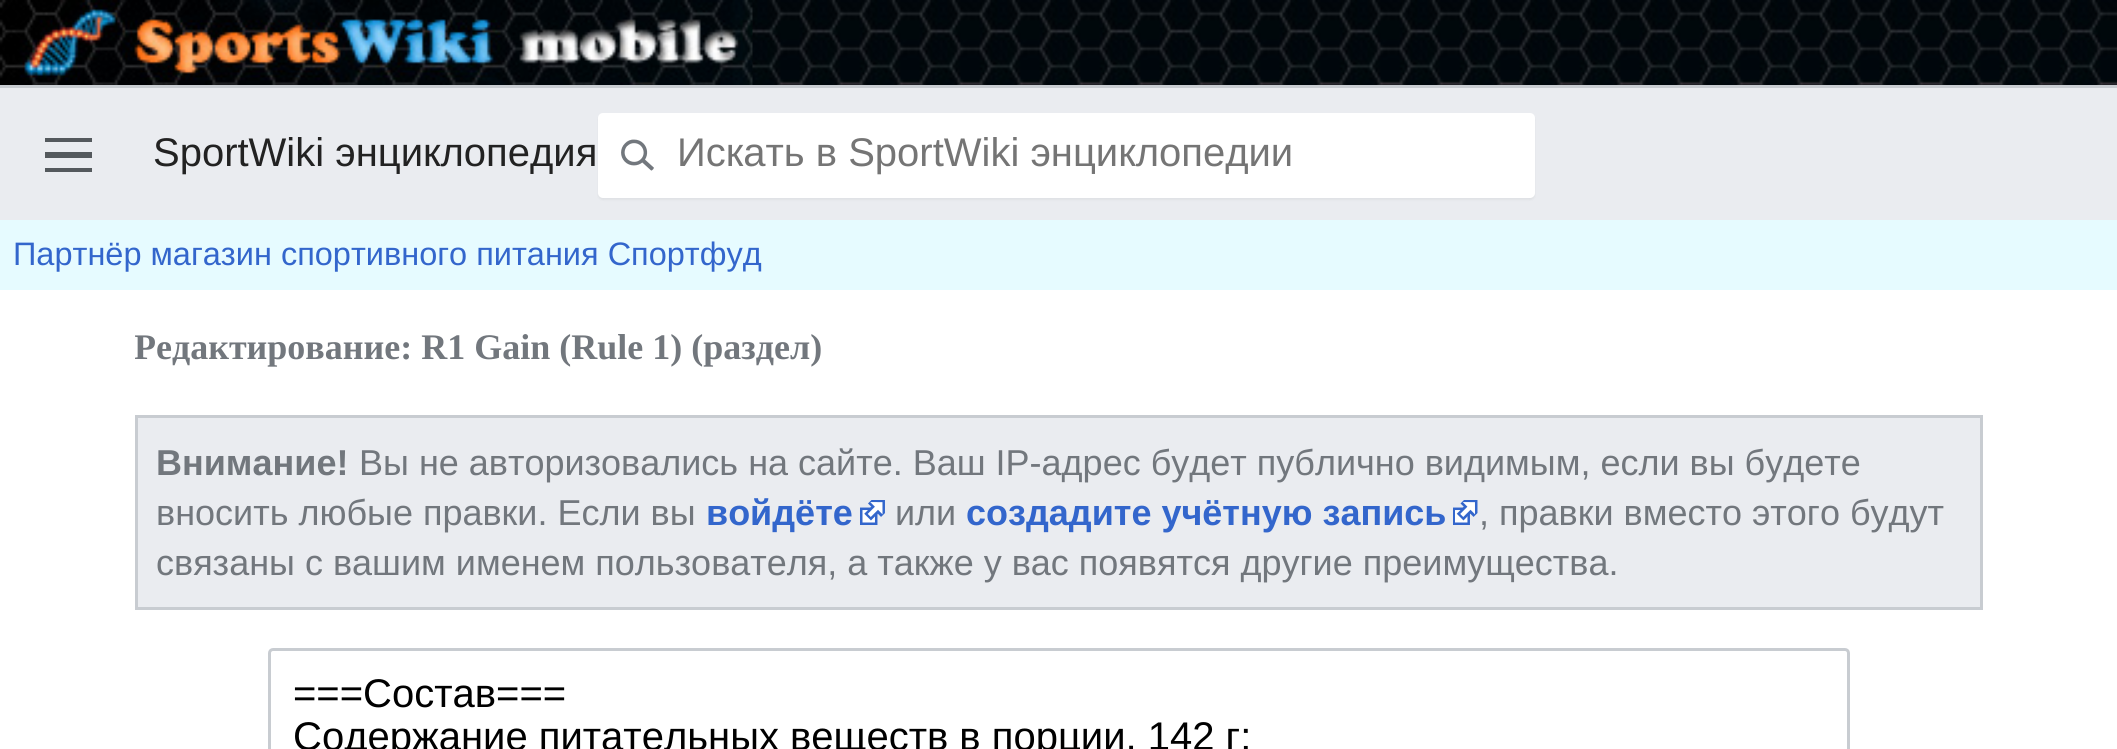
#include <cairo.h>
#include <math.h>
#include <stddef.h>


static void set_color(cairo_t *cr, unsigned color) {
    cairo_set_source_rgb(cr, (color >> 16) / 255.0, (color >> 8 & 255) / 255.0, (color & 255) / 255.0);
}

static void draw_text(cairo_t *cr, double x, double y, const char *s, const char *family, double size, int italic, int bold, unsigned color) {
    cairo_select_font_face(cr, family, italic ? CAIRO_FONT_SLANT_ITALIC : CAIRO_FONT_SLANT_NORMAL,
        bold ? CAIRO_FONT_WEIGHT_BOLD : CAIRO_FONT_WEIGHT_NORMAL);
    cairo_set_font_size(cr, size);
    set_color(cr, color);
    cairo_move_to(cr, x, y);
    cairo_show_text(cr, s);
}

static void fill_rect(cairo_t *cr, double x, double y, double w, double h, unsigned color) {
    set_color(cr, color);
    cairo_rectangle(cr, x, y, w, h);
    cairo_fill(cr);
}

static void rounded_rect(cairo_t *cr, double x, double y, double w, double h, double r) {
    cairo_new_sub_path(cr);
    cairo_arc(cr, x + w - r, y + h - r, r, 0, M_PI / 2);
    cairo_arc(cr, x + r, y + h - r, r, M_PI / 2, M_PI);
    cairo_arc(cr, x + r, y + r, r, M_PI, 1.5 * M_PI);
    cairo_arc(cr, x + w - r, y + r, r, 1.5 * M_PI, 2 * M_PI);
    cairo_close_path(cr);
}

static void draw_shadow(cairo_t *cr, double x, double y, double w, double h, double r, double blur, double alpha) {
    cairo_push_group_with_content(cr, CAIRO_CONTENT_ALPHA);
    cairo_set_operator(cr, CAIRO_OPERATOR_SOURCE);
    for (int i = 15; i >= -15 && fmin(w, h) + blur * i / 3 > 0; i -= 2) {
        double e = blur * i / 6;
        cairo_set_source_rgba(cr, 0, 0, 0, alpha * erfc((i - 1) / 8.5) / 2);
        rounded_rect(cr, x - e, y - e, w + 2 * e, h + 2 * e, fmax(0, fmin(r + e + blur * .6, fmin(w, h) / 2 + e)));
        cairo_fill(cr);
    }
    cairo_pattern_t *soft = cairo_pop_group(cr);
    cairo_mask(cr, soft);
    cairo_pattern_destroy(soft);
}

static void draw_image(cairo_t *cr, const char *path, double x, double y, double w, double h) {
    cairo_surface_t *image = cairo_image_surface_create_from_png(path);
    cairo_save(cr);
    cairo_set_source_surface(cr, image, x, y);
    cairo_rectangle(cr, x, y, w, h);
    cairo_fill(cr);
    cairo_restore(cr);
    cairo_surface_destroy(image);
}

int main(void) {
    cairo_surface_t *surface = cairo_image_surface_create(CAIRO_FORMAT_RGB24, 2117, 749);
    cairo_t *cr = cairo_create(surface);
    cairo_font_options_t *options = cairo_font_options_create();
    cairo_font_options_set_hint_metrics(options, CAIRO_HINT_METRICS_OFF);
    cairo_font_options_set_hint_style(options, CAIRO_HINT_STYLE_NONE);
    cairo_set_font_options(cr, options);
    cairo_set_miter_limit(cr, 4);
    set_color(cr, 0xFFFFFF);
    cairo_paint(cr);
    draw_image(cr, "assets/img1.png", 752, 0, 1365, 85);
    draw_image(cr, "assets/img2.png", 0, 0, 753, 85);
    fill_rect(cr, 0, 88, 2117, 132, 0xEAECF0);
    fill_rect(cr, 0, 85, 2117, 3, 0xC8CCD1);
    set_color(cr, 0x54595D);
    cairo_set_fill_rule(cr, CAIRO_FILL_RULE_EVEN_ODD);
    cairo_new_path(cr);
    cairo_move_to(cr, 92, 172);
    cairo_line_to(cr, 45, 172);
    cairo_line_to(cr, 45, 168);
    cairo_line_to(cr, 92, 168);
    cairo_close_path(cr);
    cairo_move_to(cr, 92, 158);
    cairo_line_to(cr, 45, 158);
    cairo_line_to(cr, 45, 152);
    cairo_line_to(cr, 92, 152);
    cairo_close_path(cr);
    cairo_move_to(cr, 92, 142);
    cairo_line_to(cr, 45, 142);
    cairo_line_to(cr, 45, 138);
    cairo_line_to(cr, 92, 138);
    cairo_close_path(cr);
    cairo_fill(cr);
    draw_text(cr, 153, 166, "SportWiki энциклопедия", "Liberation Sans", 40, 0, 0, 0x222222);
    set_color(cr, 0x000000);
    draw_shadow(cr, 598, 115, 937, 85, 5, 1, 0.05);
    set_color(cr, 0xFFFFFF);
    rounded_rect(cr, 598, 113, 937, 85, 5);
    cairo_fill(cr);
    draw_image(cr, "assets/img3.png", 621, 139, 33, 32);
    draw_text(cr, 677, 166, "Искать в SportWiki энциклопедии", "Liberation Sans", 40, 0, 0, 0x757575);
    fill_rect(cr, 0, 220, 2117, 70, 0xE6FBFF);
    draw_text(cr, 13, 265, "Партнёр магазин спортивного питания Спортфуд", "Liberation Sans", 32.5, 0, 0, 0x3366CC);
    cairo_save(cr);
    cairo_set_fill_rule(cr, CAIRO_FILL_RULE_WINDING);
    cairo_rectangle(cr, 135, 303, 1848, 95);
    cairo_clip(cr);
    draw_text(cr, 134, 359, "Редактирование: R1 Gain (Rule 1) (раздел)", "Liberation Serif", 36, 0, 1, 0x72777D);
    cairo_restore(cr);
    set_color(cr, 0xEAECF0);
    cairo_rectangle(cr, 136.5, 416.5, 1845, 192);
    cairo_fill_preserve(cr);
    set_color(cr, 0xC8CCD1);
    cairo_set_line_width(cr, 3);
    cairo_stroke(cr);
    draw_text(cr, 156, 475, "Внимание!", "Liberation Sans", 36, 0, 1, 0x72777D);
    draw_text(cr, 359, 475, "Вы не авторизовались на сайте. Ваш IP-адрес будет публично видимым, если вы будете", "Liberation Sans", 36, 0, 0, 0x72777D);
    draw_text(cr, 156, 525, "вносить любые правки. Если вы", "Liberation Sans", 36, 0, 0, 0x72777D);
    draw_text(cr, 706, 525, "войдёте", "Liberation Sans", 36, 0, 1, 0x3366CC);
    draw_image(cr, "assets/img4.png", 860, 500, 25, 25);
    draw_text(cr, 895, 525, "или", "Liberation Sans", 36, 0, 0, 0x72777D);
    draw_text(cr, 966, 525, "создадите учётную запись", "Liberation Sans", 36, 0, 1, 0x3366CC);
    draw_image(cr, "assets/img5.png", 1453, 500, 25, 25);
    draw_text(cr, 1479, 525, ", правки вместо этого будут", "Liberation Sans", 36, 0, 0, 0x72777D);
    draw_text(cr, 156, 575, "связаны с вашим именем пользователя, а также у вас появятся другие преимущества.", "Liberation Sans", 36, 0, 0, 0x72777D);
    rounded_rect(cr, 269.5, 649.5, 1579, 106, 3.5);
    set_color(cr, 0xC8CCD1);
    cairo_stroke(cr);
    draw_text(cr, 293, 707, "===Состав===", "Liberation Sans", 40, 0, 0, 0x000000);
    draw_text(cr, 293, 750, "Содержание питательных веществ в порции, 142 г:", "Liberation Sans", 40, 0, 0, 0x000000);
    cairo_surface_write_to_png(surface, "output.png");
    cairo_font_options_destroy(options);
    cairo_destroy(cr);
    cairo_surface_destroy(surface);
    return 0;
}
